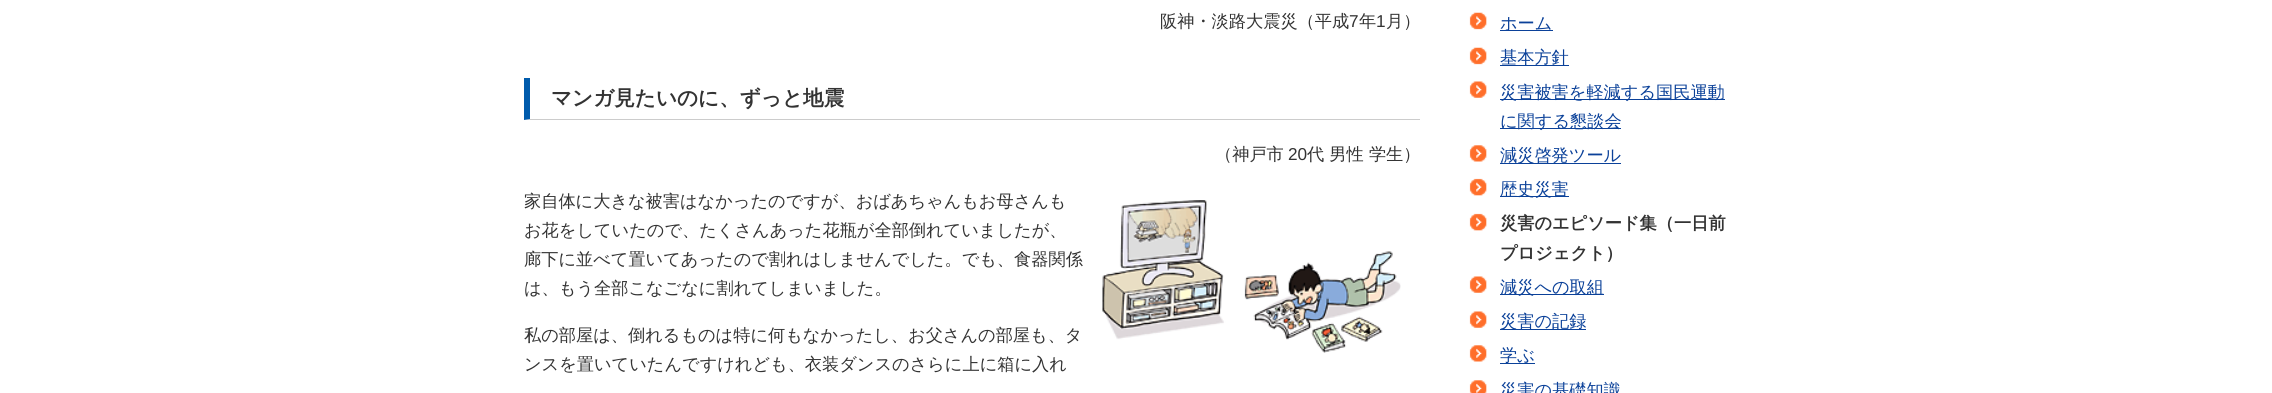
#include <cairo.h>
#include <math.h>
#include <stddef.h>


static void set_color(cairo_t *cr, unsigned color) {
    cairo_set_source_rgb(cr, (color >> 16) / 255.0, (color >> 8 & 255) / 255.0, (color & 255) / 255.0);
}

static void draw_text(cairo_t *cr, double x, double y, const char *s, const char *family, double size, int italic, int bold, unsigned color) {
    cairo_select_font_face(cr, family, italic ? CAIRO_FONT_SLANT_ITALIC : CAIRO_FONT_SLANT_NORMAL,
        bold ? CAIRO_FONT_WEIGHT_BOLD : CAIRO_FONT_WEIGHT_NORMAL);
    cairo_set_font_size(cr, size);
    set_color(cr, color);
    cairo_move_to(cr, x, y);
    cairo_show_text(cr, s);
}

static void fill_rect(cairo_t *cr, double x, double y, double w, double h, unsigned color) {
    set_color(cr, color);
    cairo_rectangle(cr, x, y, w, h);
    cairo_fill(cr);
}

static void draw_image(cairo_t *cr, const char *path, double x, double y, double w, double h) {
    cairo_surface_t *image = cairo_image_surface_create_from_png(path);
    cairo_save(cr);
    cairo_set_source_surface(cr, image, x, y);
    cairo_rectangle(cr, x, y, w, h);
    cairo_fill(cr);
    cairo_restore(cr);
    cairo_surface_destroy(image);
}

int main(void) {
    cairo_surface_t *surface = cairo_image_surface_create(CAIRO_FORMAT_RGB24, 2272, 393);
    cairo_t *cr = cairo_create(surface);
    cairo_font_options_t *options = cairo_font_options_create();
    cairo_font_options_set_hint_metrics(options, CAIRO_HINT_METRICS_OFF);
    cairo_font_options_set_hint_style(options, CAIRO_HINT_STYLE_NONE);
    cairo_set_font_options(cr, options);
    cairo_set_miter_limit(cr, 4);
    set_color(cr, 0xFFFFFF);
    cairo_paint(cr);
    draw_text(cr, 1160, 27, "阪神・淡路大震災（平成", "WenQuanYi Zen Hei Medium", 17.2, 0, 0, 0x333333);
    draw_text(cr, 1349, 27, "7", "Liberation Sans", 17.2, 0, 0, 0x333333);
    draw_text(cr, 1359, 27, "年", "WenQuanYi Zen Hei Medium", 17.2, 0, 0, 0x333333);
    draw_text(cr, 1376, 27, "1", "Liberation Sans", 17.2, 0, 0, 0x333333);
    draw_text(cr, 1386, 27, "月）", "WenQuanYi Zen Hei Medium", 17.2, 0, 0, 0x333333);
    set_color(cr, 0xCCCCCC);
    cairo_new_path(cr);
    cairo_move_to(cr, 1420, 120);
    cairo_line_to(cr, 524, 120);
    cairo_line_to(cr, 530, 119);
    cairo_line_to(cr, 1420, 119);
    cairo_close_path(cr);
    cairo_fill(cr);
    set_color(cr, 0x005BAC);
    cairo_new_path(cr);
    cairo_move_to(cr, 524, 120);
    cairo_line_to(cr, 524, 78);
    cairo_line_to(cr, 530, 78);
    cairo_line_to(cr, 530, 119);
    cairo_close_path(cr);
    cairo_fill(cr);
    draw_text(cr, 551, 105, "マンガ見たいのに、ずっと地震", "WenQuanYi Zen Hei", 20.6, 0, 1, 0x333333);
    draw_text(cr, 1215, 160, "（神戸市", "WenQuanYi Zen Hei Medium", 17.2, 0, 0, 0x333333);
    draw_text(cr, 1288, 160, "20", "Liberation Sans", 17.2, 0, 0, 0x333333);
    draw_text(cr, 1307, 160, "代 男性 学生）", "WenQuanYi Zen Hei Medium", 17.2, 0, 0, 0x333333);
    draw_text(cr, 524, 207, "家自体に大きな被害はなかったのですが、おばあちゃんもお母さんも", "WenQuanYi Zen Hei Medium", 17.2, 0, 0, 0x333333);
    draw_text(cr, 524, 236, "お花をしていたので、たくさんあった花瓶が全部倒れていましたが、", "WenQuanYi Zen Hei Medium", 17.2, 0, 0, 0x333333);
    draw_text(cr, 524, 265, "廊下に並べて置いてあったので割れはしませんでした。でも、食器関係", "WenQuanYi Zen Hei Medium", 17.2, 0, 0, 0x333333);
    draw_text(cr, 524, 294, "は、もう全部こなごなに割れてしまいました。", "WenQuanYi Zen Hei Medium", 17.2, 0, 0, 0x333333);
    draw_image(cr, "assets/img1.png", 1102, 200, 299, 153);
    draw_text(cr, 524, 341, "私の部屋は、倒れるものは特に何もなかったし、お父さんの部屋も、タ", "WenQuanYi Zen Hei Medium", 17.2, 0, 0, 0x333333);
    draw_text(cr, 524, 370, "ンスを置いていたんですけれども、衣装ダンスのさらに上に箱に入れ", "WenQuanYi Zen Hei Medium", 17.2, 0, 0, 0x333333);
    draw_image(cr, "assets/img2.png", 1469, 12, 18, 18);
    fill_rect(cr, 1500, 30, 53, 1, 0x0B4199);
    draw_text(cr, 1500, 29, "ホーム", "WenQuanYi Zen Hei Medium", 17.2, 0, 0, 0x0B4199);
    draw_image(cr, "assets/img2.png", 1469, 47, 18, 18);
    fill_rect(cr, 1500, 65, 69, 1, 0x0B4199);
    draw_text(cr, 1500, 63, "基本方針", "WenQuanYi Zen Hei Medium", 17.2, 0, 0, 0x0B4199);
    draw_image(cr, "assets/img3.png", 1469, 81, 18, 17);
    fill_rect(cr, 1500, 99, 225, 1, 0x0B4199);
    draw_text(cr, 1500, 98, "災害被害を軽減する国民運動", "WenQuanYi Zen Hei Medium", 17.2, 0, 0, 0x0B4199);
    fill_rect(cr, 1500, 128, 121, 1, 0x0B4199);
    draw_text(cr, 1500, 127, "に関する懇談会", "WenQuanYi Zen Hei Medium", 17.2, 0, 0, 0x0B4199);
    draw_image(cr, "assets/img4.png", 1469, 145, 18, 17);
    fill_rect(cr, 1500, 163, 121, 1, 0x0B4199);
    draw_text(cr, 1500, 161, "減災啓発ツール", "WenQuanYi Zen Hei Medium", 17.2, 0, 0, 0x0B4199);
    draw_image(cr, "assets/img5.png", 1469, 178, 18, 18);
    fill_rect(cr, 1500, 196, 69, 1, 0x0B4199);
    draw_text(cr, 1500, 195, "歴史災害", "WenQuanYi Zen Hei Medium", 17.2, 0, 0, 0x0B4199);
    draw_image(cr, "assets/img5.png", 1469, 213, 18, 18);
    draw_text(cr, 1500, 229, "災害のエピソード集（一日前", "WenQuanYi Zen Hei", 17.2, 0, 1, 0x333333);
    draw_text(cr, 1500, 259, "プロジェクト）", "WenQuanYi Zen Hei", 17.2, 0, 1, 0x333333);
    draw_image(cr, "assets/img3.png", 1469, 276, 18, 17);
    fill_rect(cr, 1500, 294, 104, 1, 0x0B4199);
    draw_text(cr, 1500, 293, "減災への取組", "WenQuanYi Zen Hei Medium", 17.2, 0, 0, 0x0B4199);
    draw_image(cr, "assets/img3.png", 1469, 311, 18, 17);
    fill_rect(cr, 1500, 329, 86, 1, 0x0B4199);
    draw_text(cr, 1500, 327, "災害の記録", "WenQuanYi Zen Hei Medium", 17.2, 0, 0, 0x0B4199);
    draw_image(cr, "assets/img4.png", 1469, 345, 18, 17);
    fill_rect(cr, 1500, 363, 35, 1, 0x0B4199);
    draw_text(cr, 1500, 361, "学ぶ", "WenQuanYi Zen Hei Medium", 17.2, 0, 0, 0x0B4199);
    draw_image(cr, "assets/img6.png", 1469, 380, 18, 13);
    draw_text(cr, 1500, 396, "災害の基礎知識", "WenQuanYi Zen Hei Medium", 17.2, 0, 0, 0x0B4199);
    cairo_surface_write_to_png(surface, "output.png");
    cairo_font_options_destroy(options);
    cairo_destroy(cr);
    cairo_surface_destroy(surface);
    return 0;
}
